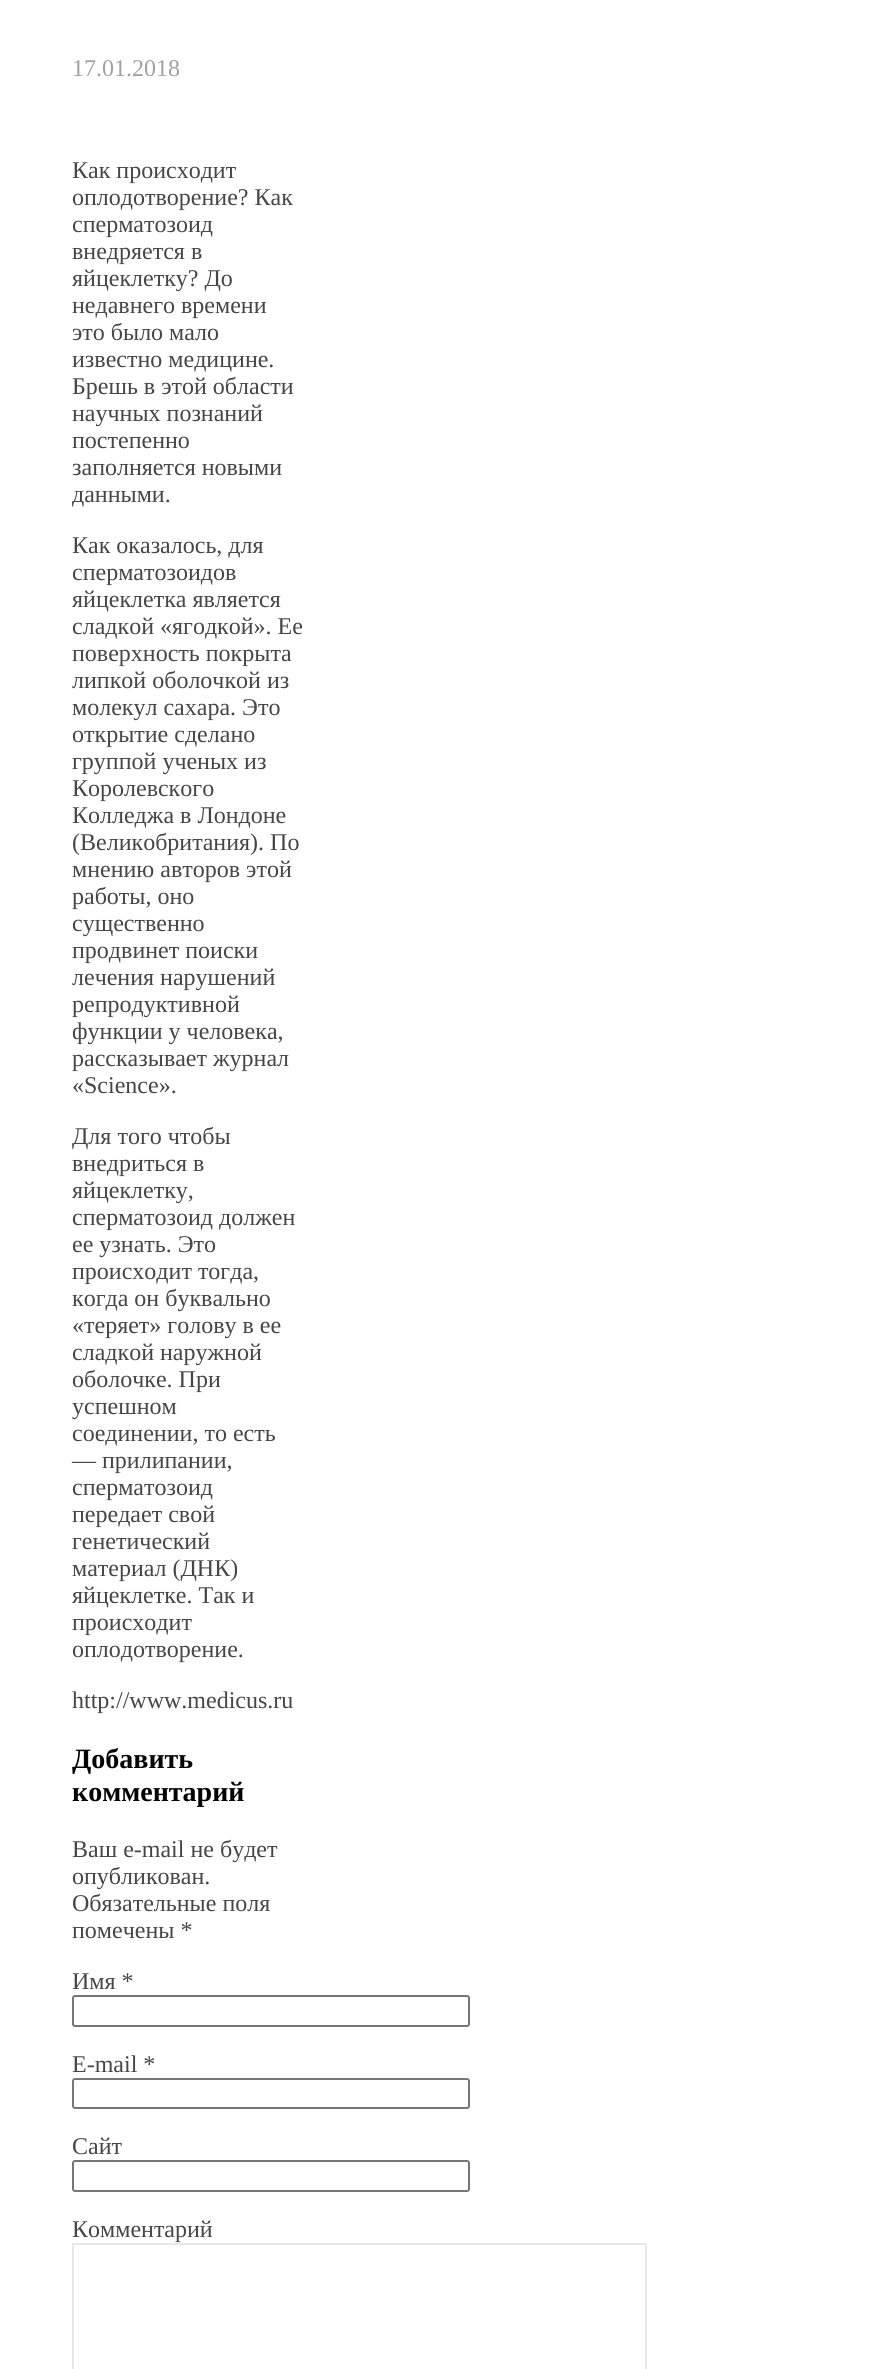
#include <cairo.h>
#include <math.h>
#include <stddef.h>


static void set_color(cairo_t *cr, unsigned color) {
    cairo_set_source_rgb(cr, (color >> 16) / 255.0, (color >> 8 & 255) / 255.0, (color & 255) / 255.0);
}

static void draw_text(cairo_t *cr, double x, double y, const char *s, const char *family, double size, int italic, int bold, unsigned color) {
    cairo_select_font_face(cr, family, italic ? CAIRO_FONT_SLANT_ITALIC : CAIRO_FONT_SLANT_NORMAL,
        bold ? CAIRO_FONT_WEIGHT_BOLD : CAIRO_FONT_WEIGHT_NORMAL);
    cairo_set_font_size(cr, size);
    set_color(cr, color);
    cairo_move_to(cr, x, y);
    cairo_show_text(cr, s);
}

static void rounded_rect(cairo_t *cr, double x, double y, double w, double h, double r) {
    cairo_new_sub_path(cr);
    cairo_arc(cr, x + w - r, y + h - r, r, 0, M_PI / 2);
    cairo_arc(cr, x + r, y + h - r, r, M_PI / 2, M_PI);
    cairo_arc(cr, x + r, y + r, r, M_PI, 1.5 * M_PI);
    cairo_arc(cr, x + w - r, y + r, r, 1.5 * M_PI, 2 * M_PI);
    cairo_close_path(cr);
}

int main(void) {
    cairo_surface_t *surface = cairo_image_surface_create(CAIRO_FORMAT_RGB24, 895, 2369);
    cairo_t *cr = cairo_create(surface);
    cairo_font_options_t *options = cairo_font_options_create();
    cairo_font_options_set_hint_metrics(options, CAIRO_HINT_METRICS_OFF);
    cairo_font_options_set_hint_style(options, CAIRO_HINT_STYLE_NONE);
    cairo_set_font_options(cr, options);
    cairo_set_miter_limit(cr, 4);
    set_color(cr, 0xFFFFFF);
    cairo_paint(cr);
    draw_text(cr, 72, 76, "17.01.2018", "Liberation Serif", 24, 0, 0, 0xA1A1A1);
    draw_text(cr, 72, 178, "Как происходит", "Liberation Serif", 24, 0, 0, 0x464646);
    draw_text(cr, 72, 205, "оплодотворение? Как", "Liberation Serif", 24, 0, 0, 0x464646);
    draw_text(cr, 72, 232, "сперматозоид", "Liberation Serif", 24, 0, 0, 0x464646);
    draw_text(cr, 72, 259, "внедряется в", "Liberation Serif", 24, 0, 0, 0x464646);
    draw_text(cr, 72, 286, "яйцеклетку? До", "Liberation Serif", 24, 0, 0, 0x464646);
    draw_text(cr, 72, 313, "недавнего времени", "Liberation Serif", 24, 0, 0, 0x464646);
    draw_text(cr, 72, 340, "это было мало", "Liberation Serif", 24, 0, 0, 0x464646);
    draw_text(cr, 72, 367, "известно медицине.", "Liberation Serif", 24, 0, 0, 0x464646);
    draw_text(cr, 72, 394, "Брешь в этой области", "Liberation Serif", 24, 0, 0, 0x464646);
    draw_text(cr, 72, 421, "научных познаний", "Liberation Serif", 24, 0, 0, 0x464646);
    draw_text(cr, 72, 448, "постепенно", "Liberation Serif", 24, 0, 0, 0x464646);
    draw_text(cr, 72, 475, "заполняется новыми", "Liberation Serif", 24, 0, 0, 0x464646);
    draw_text(cr, 72, 502, "данными.", "Liberation Serif", 24, 0, 0, 0x464646);
    draw_text(cr, 72, 553, "Как оказалось, для", "Liberation Serif", 24, 0, 0, 0x464646);
    draw_text(cr, 72, 580, "сперматозоидов", "Liberation Serif", 24, 0, 0, 0x464646);
    draw_text(cr, 72, 607, "яйцеклетка является", "Liberation Serif", 24, 0, 0, 0x464646);
    draw_text(cr, 72, 634, "сладкой «ягодкой». Ее", "Liberation Serif", 24, 0, 0, 0x464646);
    draw_text(cr, 72, 661, "поверхность покрыта", "Liberation Serif", 24, 0, 0, 0x464646);
    draw_text(cr, 72, 688, "липкой оболочкой из", "Liberation Serif", 24, 0, 0, 0x464646);
    draw_text(cr, 72, 715, "молекул сахара. Это", "Liberation Serif", 24, 0, 0, 0x464646);
    draw_text(cr, 72, 742, "открытие сделано", "Liberation Serif", 24, 0, 0, 0x464646);
    draw_text(cr, 72, 769, "группой ученых из", "Liberation Serif", 24, 0, 0, 0x464646);
    draw_text(cr, 72, 796, "Королевского", "Liberation Serif", 24, 0, 0, 0x464646);
    draw_text(cr, 72, 823, "Колледжа в Лондоне", "Liberation Serif", 24, 0, 0, 0x464646);
    draw_text(cr, 72, 850, "(Великобритания). По", "Liberation Serif", 24, 0, 0, 0x464646);
    draw_text(cr, 72, 877, "мнению авторов этой", "Liberation Serif", 24, 0, 0, 0x464646);
    draw_text(cr, 72, 904, "работы, оно", "Liberation Serif", 24, 0, 0, 0x464646);
    draw_text(cr, 72, 931, "существенно", "Liberation Serif", 24, 0, 0, 0x464646);
    draw_text(cr, 72, 958, "продвинет поиски", "Liberation Serif", 24, 0, 0, 0x464646);
    draw_text(cr, 72, 985, "лечения нарушений", "Liberation Serif", 24, 0, 0, 0x464646);
    draw_text(cr, 72, 1012, "репродуктивной", "Liberation Serif", 24, 0, 0, 0x464646);
    draw_text(cr, 72, 1039, "функции у человека,", "Liberation Serif", 24, 0, 0, 0x464646);
    draw_text(cr, 72, 1066, "рассказывает журнал", "Liberation Serif", 24, 0, 0, 0x464646);
    draw_text(cr, 72, 1093, "«Science».", "Liberation Serif", 24, 0, 0, 0x464646);
    draw_text(cr, 72, 1144, "Для того чтобы", "Liberation Serif", 24, 0, 0, 0x464646);
    draw_text(cr, 72, 1171, "внедриться в", "Liberation Serif", 24, 0, 0, 0x464646);
    draw_text(cr, 72, 1198, "яйцеклетку,", "Liberation Serif", 24, 0, 0, 0x464646);
    draw_text(cr, 72, 1225, "сперматозоид должен", "Liberation Serif", 24, 0, 0, 0x464646);
    draw_text(cr, 72, 1252, "ее узнать. Это", "Liberation Serif", 24, 0, 0, 0x464646);
    draw_text(cr, 72, 1279, "происходит тогда,", "Liberation Serif", 24, 0, 0, 0x464646);
    draw_text(cr, 72, 1306, "когда он буквально", "Liberation Serif", 24, 0, 0, 0x464646);
    draw_text(cr, 72, 1333, "«теряет» голову в ее", "Liberation Serif", 24, 0, 0, 0x464646);
    draw_text(cr, 72, 1360, "сладкой наружной", "Liberation Serif", 24, 0, 0, 0x464646);
    draw_text(cr, 72, 1387, "оболочке. При", "Liberation Serif", 24, 0, 0, 0x464646);
    draw_text(cr, 72, 1414, "успешном", "Liberation Serif", 24, 0, 0, 0x464646);
    draw_text(cr, 72, 1441, "соединении, то есть", "Liberation Serif", 24, 0, 0, 0x464646);
    draw_text(cr, 72, 1468, "— прилипании,", "Liberation Serif", 24, 0, 0, 0x464646);
    draw_text(cr, 72, 1495, "сперматозоид", "Liberation Serif", 24, 0, 0, 0x464646);
    draw_text(cr, 72, 1522, "передает свой", "Liberation Serif", 24, 0, 0, 0x464646);
    draw_text(cr, 72, 1549, "генетический", "Liberation Serif", 24, 0, 0, 0x464646);
    draw_text(cr, 72, 1576, "материал (ДНК)", "Liberation Serif", 24, 0, 0, 0x464646);
    draw_text(cr, 72, 1603, "яйцеклетке. Так и", "Liberation Serif", 24, 0, 0, 0x464646);
    draw_text(cr, 72, 1630, "происходит", "Liberation Serif", 24, 0, 0, 0x464646);
    draw_text(cr, 72, 1657, "оплодотворение.", "Liberation Serif", 24, 0, 0, 0x464646);
    draw_text(cr, 72, 1708, "http://www.medicus.ru", "Liberation Serif", 24, 0, 0, 0x464646);
    draw_text(cr, 72, 1768, "Добавить", "Liberation Serif", 28, 0, 1, 0x030303);
    draw_text(cr, 72, 1801, "комментарий", "Liberation Serif", 28, 0, 1, 0x030303);
    draw_text(cr, 72, 1857, "Ваш e-mail не будет", "Liberation Serif", 24, 0, 0, 0x464646);
    draw_text(cr, 72, 1884, "опубликован.", "Liberation Serif", 24, 0, 0, 0x464646);
    draw_text(cr, 72, 1911, "Обязательные поля", "Liberation Serif", 24, 0, 0, 0x464646);
    draw_text(cr, 72, 1938, "помечены *", "Liberation Serif", 24, 0, 0, 0x464646);
    draw_text(cr, 72, 1989, "Имя *", "Liberation Serif", 24, 0, 0, 0x464646);
    rounded_rect(cr, 73, 1996, 396, 30, 2);
    set_color(cr, 0x767676);
    cairo_stroke(cr);
    draw_text(cr, 72, 2072, "E-mail *", "Liberation Serif", 24, 0, 0, 0x464646);
    rounded_rect(cr, 73, 2079, 396, 29, 2);
    set_color(cr, 0x767676);
    cairo_stroke(cr);
    draw_text(cr, 72, 2154, "Сайт", "Liberation Serif", 24, 0, 0, 0x464646);
    rounded_rect(cr, 73, 2161, 396, 30, 2);
    set_color(cr, 0x767676);
    cairo_stroke(cr);
    draw_text(cr, 72, 2237, "Комментарий", "Liberation Serif", 24, 0, 0, 0x464646);
    cairo_rectangle(cr, 73, 2244, 573, 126);
    set_color(cr, 0xE8E8E8);
    cairo_stroke(cr);
    cairo_surface_write_to_png(surface, "output.png");
    cairo_font_options_destroy(options);
    cairo_destroy(cr);
    cairo_surface_destroy(surface);
    return 0;
}
